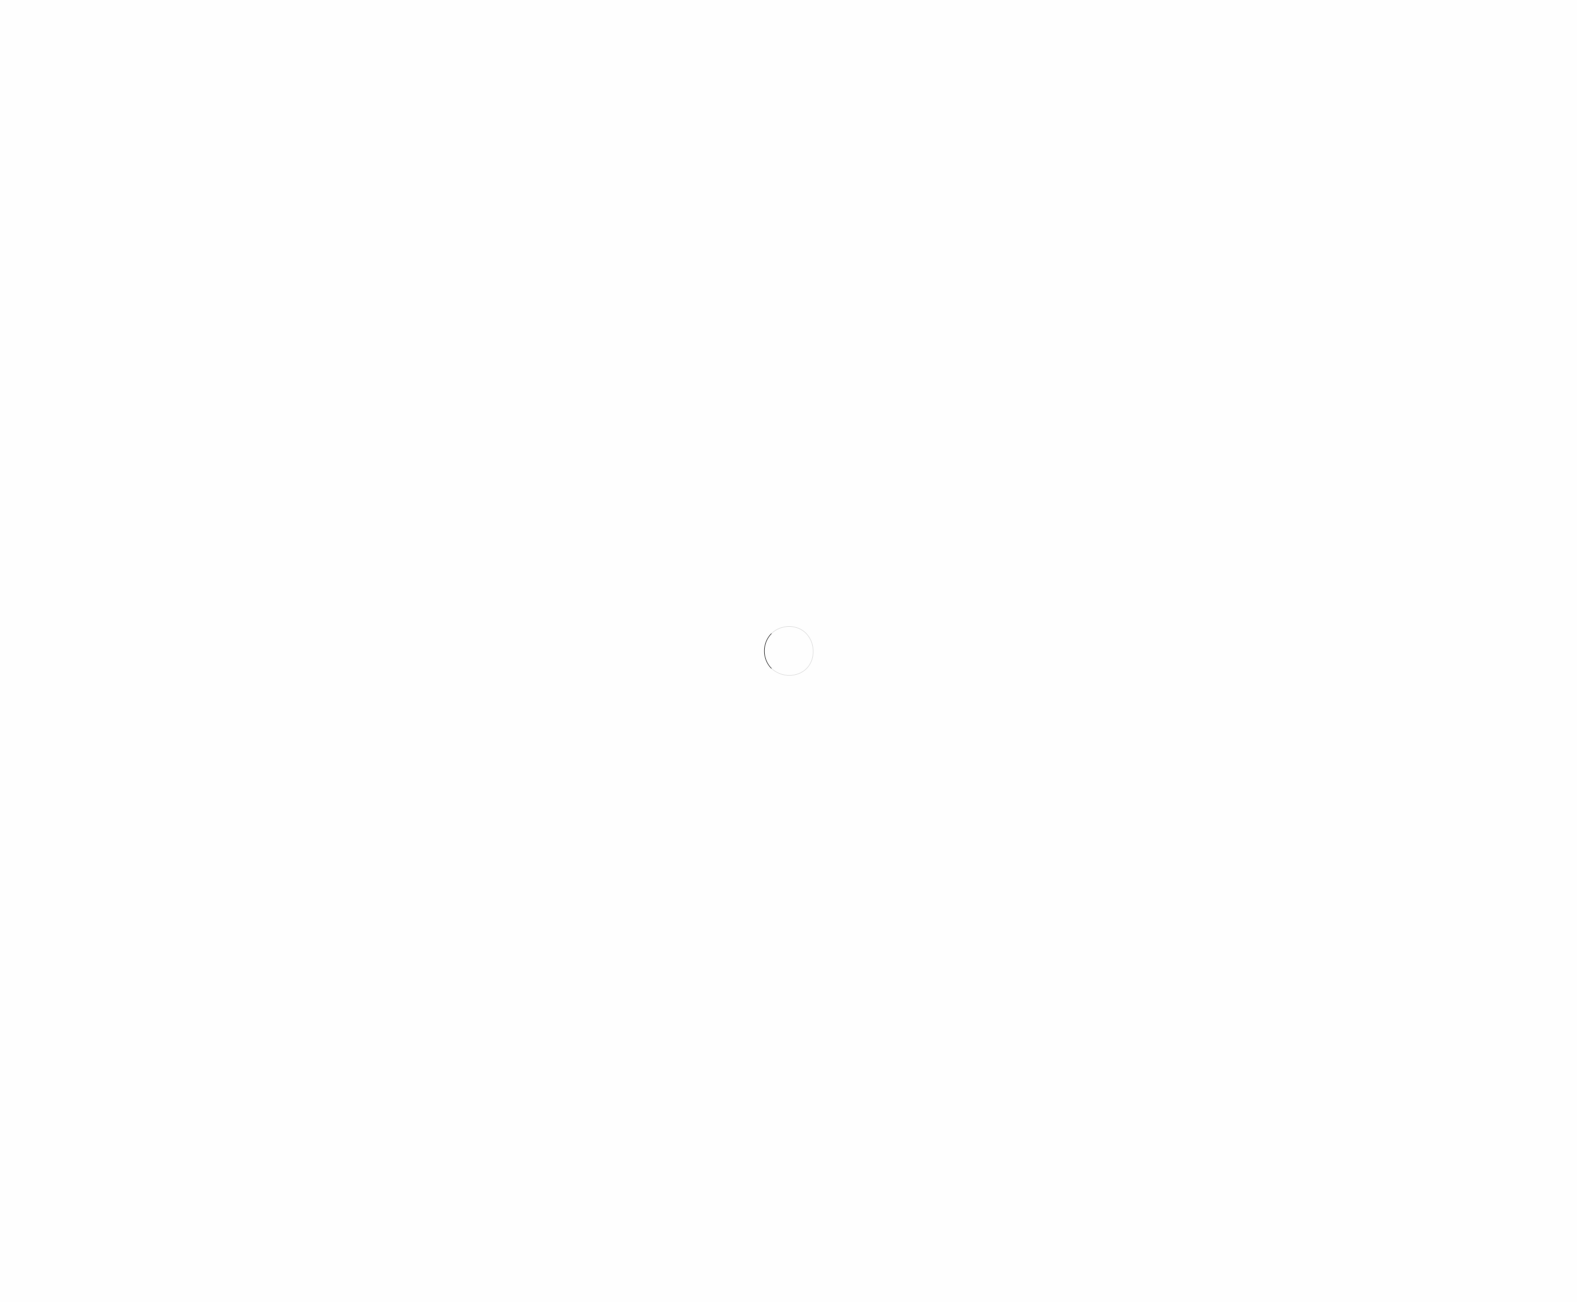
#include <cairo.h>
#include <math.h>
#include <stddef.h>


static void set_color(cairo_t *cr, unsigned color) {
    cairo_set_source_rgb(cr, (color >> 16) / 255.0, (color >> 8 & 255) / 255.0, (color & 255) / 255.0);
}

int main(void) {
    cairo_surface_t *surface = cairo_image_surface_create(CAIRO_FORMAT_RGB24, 1577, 1302);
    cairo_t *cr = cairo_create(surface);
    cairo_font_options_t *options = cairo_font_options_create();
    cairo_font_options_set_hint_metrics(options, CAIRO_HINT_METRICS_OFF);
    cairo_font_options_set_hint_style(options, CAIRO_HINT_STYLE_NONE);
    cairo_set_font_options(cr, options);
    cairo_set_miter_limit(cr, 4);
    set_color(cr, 0xFEFEFE);
    cairo_paint(cr);
    cairo_new_path(cr);
    cairo_move_to(cr, 771.5, 633.5);
    cairo_curve_to(cr, 776, 629, 782.5, 626.5, 789, 626.5);
    cairo_curve_to(cr, 818, 626.5, 822.5, 669.5, 794, 675);
    cairo_curve_to(cr, 786, 676.5, 777.5, 674, 771.5, 668.5);
    set_color(cr, 0xEAEAEA);
    cairo_set_line_width(cr, 1);
    cairo_stroke(cr);
    cairo_new_path(cr);
    cairo_move_to(cr, 771.5, 668.5);
    cairo_curve_to(cr, 762, 659, 762, 643, 771.5, 633.5);
    set_color(cr, 0x7F7F7F);
    cairo_stroke(cr);
    cairo_surface_write_to_png(surface, "output.png");
    cairo_font_options_destroy(options);
    cairo_destroy(cr);
    cairo_surface_destroy(surface);
    return 0;
}
